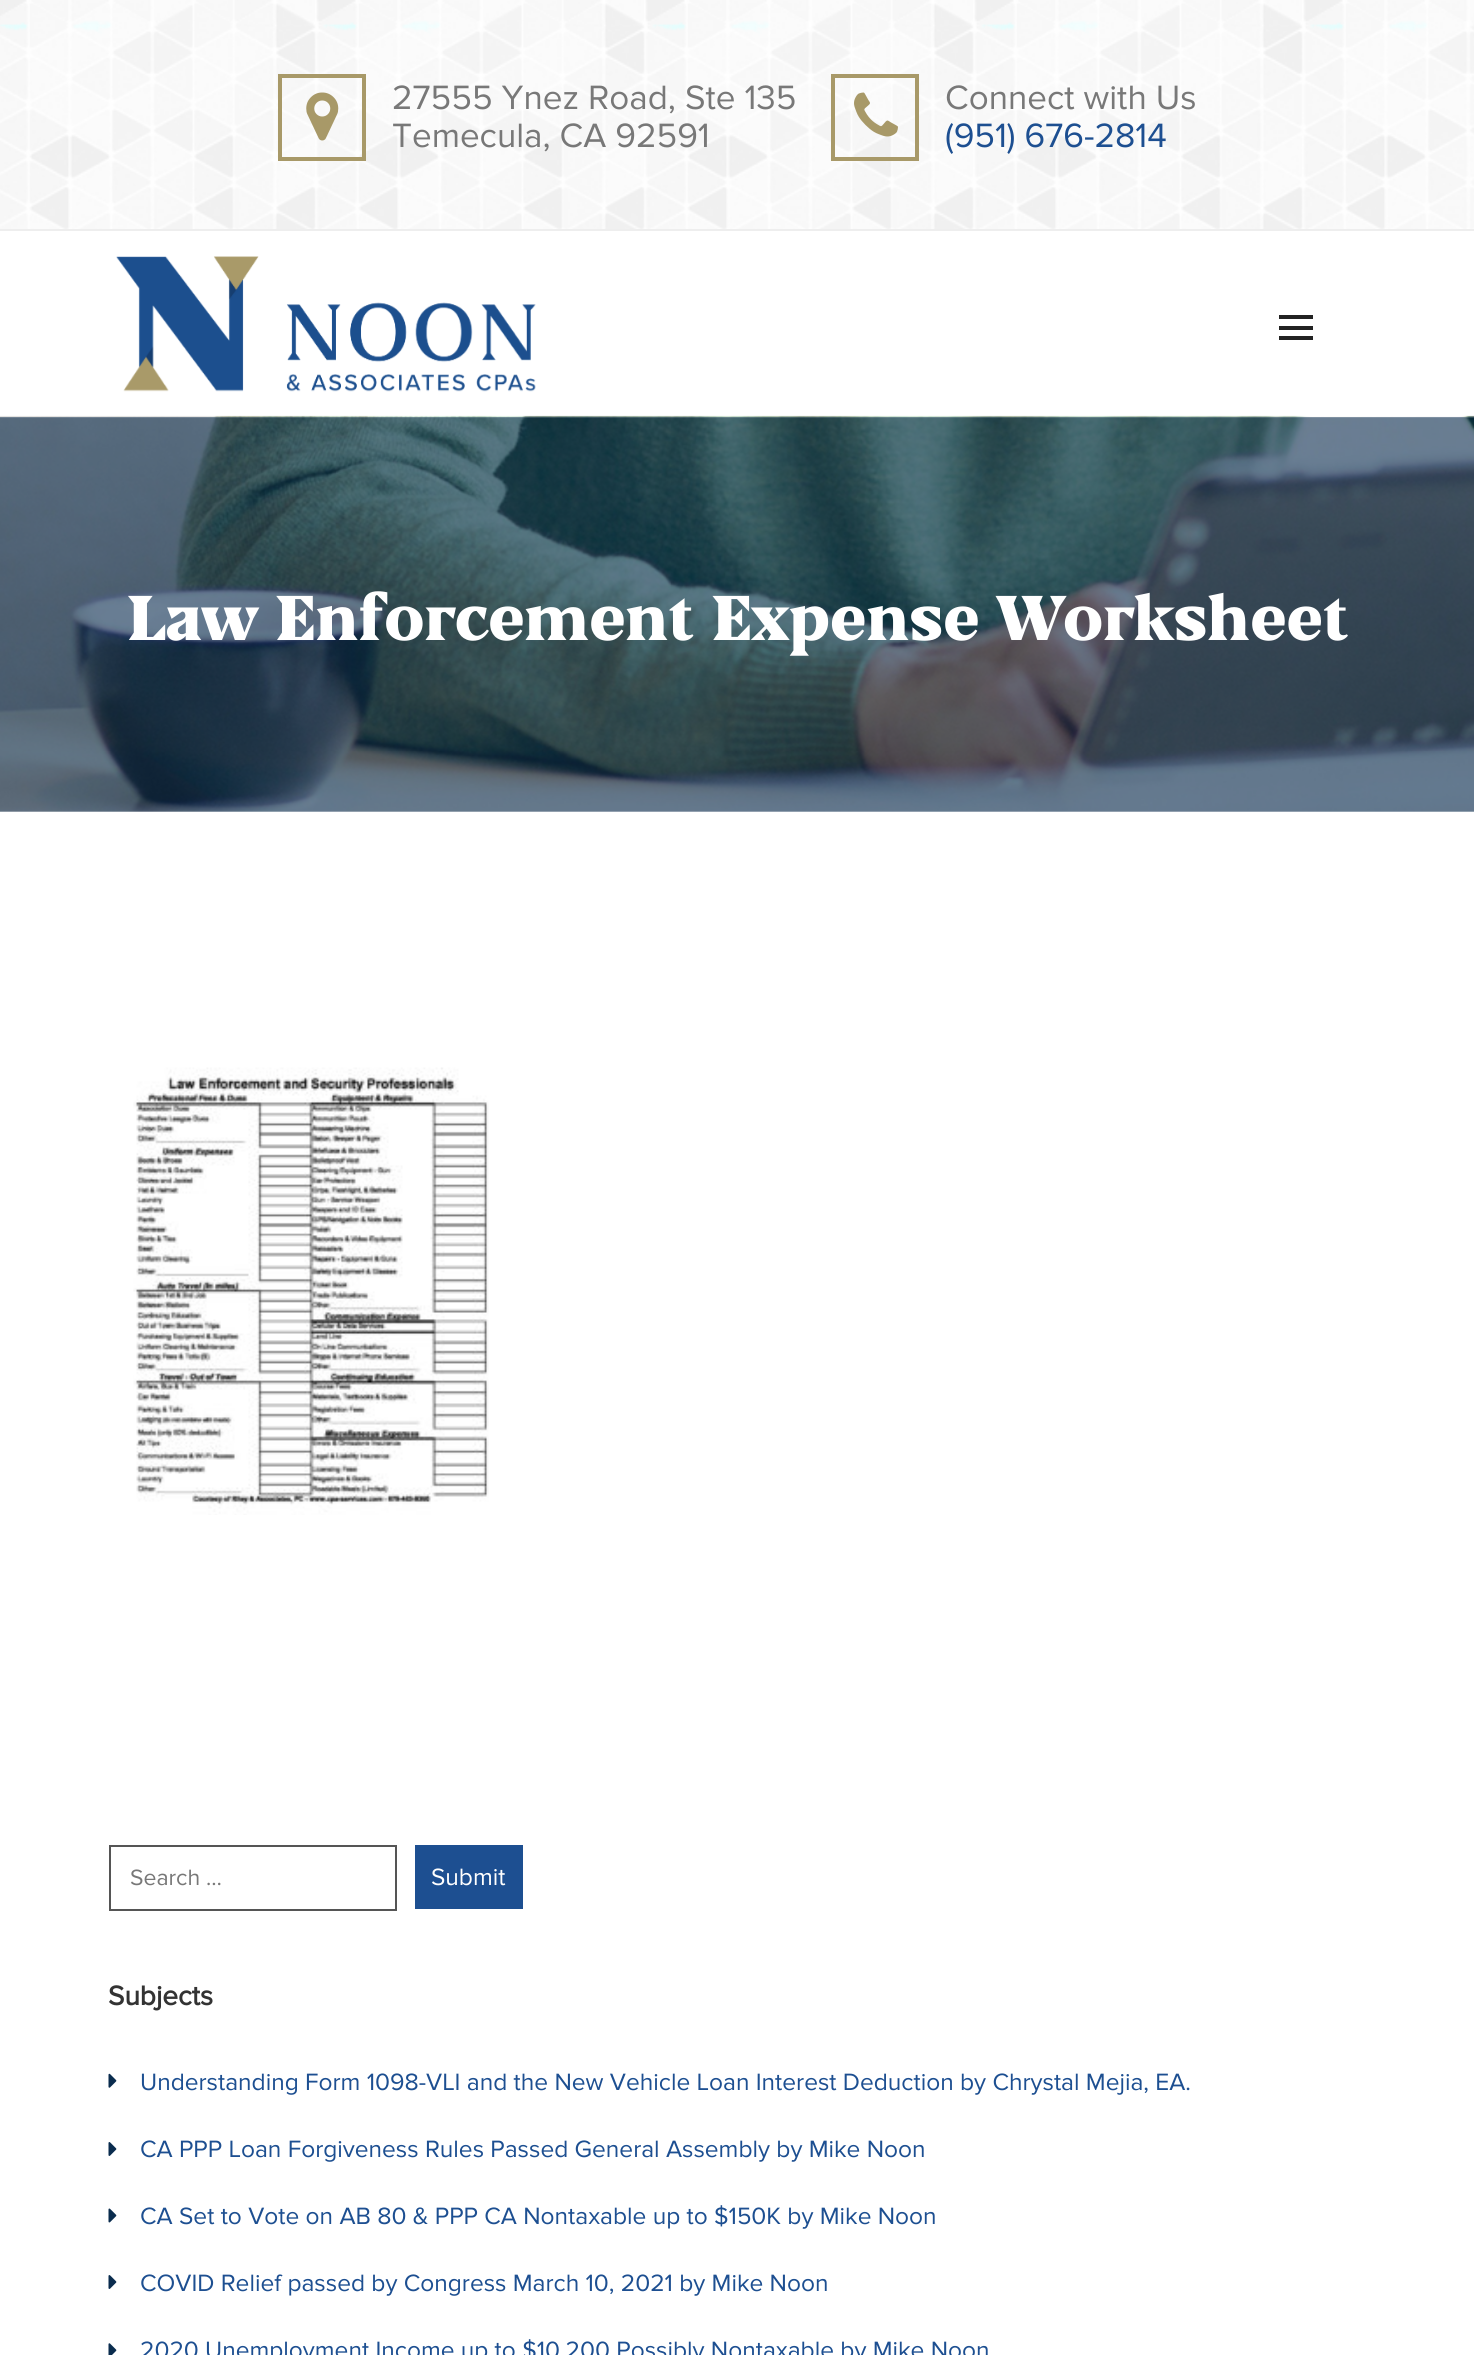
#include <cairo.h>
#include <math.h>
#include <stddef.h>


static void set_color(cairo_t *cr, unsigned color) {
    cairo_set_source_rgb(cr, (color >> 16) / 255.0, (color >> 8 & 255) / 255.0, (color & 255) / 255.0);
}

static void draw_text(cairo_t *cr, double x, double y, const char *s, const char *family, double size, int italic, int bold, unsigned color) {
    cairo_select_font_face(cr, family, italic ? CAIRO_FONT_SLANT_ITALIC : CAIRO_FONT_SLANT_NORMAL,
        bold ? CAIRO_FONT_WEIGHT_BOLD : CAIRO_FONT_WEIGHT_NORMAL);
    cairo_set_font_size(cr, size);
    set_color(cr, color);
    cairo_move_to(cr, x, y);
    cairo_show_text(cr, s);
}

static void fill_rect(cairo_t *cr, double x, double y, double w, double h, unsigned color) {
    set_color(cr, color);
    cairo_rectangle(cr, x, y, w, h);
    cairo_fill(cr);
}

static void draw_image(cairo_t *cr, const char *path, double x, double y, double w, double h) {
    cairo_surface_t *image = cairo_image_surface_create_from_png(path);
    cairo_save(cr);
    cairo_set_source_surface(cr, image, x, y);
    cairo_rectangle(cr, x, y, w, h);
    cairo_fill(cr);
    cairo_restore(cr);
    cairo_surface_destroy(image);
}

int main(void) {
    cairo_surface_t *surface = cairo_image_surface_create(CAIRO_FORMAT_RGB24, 1474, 2355);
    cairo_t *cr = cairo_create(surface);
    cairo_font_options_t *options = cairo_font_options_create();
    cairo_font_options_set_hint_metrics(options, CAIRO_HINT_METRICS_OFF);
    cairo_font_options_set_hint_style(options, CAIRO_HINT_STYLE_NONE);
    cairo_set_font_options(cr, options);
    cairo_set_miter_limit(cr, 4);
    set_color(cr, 0xFFFFFF);
    cairo_paint(cr);
    draw_image(cr, "assets/img1.png", 0, 0, 1474, 229);
    cairo_rectangle(cr, 280, 76, 84, 83);
    set_color(cr, 0xA89968);
    cairo_set_line_width(cr, 4);
    cairo_stroke(cr);
    draw_image(cr, "assets/img2.png", 306, 92, 33, 49);
    draw_text(cr, 392, 109, "27555 Ynez Road, Ste 135", "Proxima Nova", 35, 0, 0, 0x787878);
    draw_text(cr, 392, 147, "Temecula, CA 92591", "Proxima Nova", 35, 0, 0, 0x787878);
    cairo_rectangle(cr, 833, 76, 84, 83);
    set_color(cr, 0xA89968);
    cairo_stroke(cr);
    draw_image(cr, "assets/img3.png", 854, 92, 44, 45);
    draw_text(cr, 945, 109, "Connect with Us", "Proxima Nova", 35, 0, 0, 0x787878);
    draw_text(cr, 945, 147, "(951) 676-2814", "Proxima Nova", 35, 0, 0, 0x1D4F91);
    fill_rect(cr, 0, 229, 1474, 2, 0xEEEEEE);
    draw_image(cr, "assets/img4.png", 116, 256, 420, 136);
    fill_rect(cr, 1279, 326, 34, 4, 0x222222);
    fill_rect(cr, 1279, 315, 34, 4, 0x222222);
    fill_rect(cr, 1279, 336, 34, 4, 0x222222);
    draw_image(cr, "assets/img5.png", 0, 415, 1474, 397);
    draw_text(cr, 127, 640, "Law Enforcement Expense Worksheet", "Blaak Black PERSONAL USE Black", 63, 0, 0, 0xFFFFFF);
    draw_image(cr, "assets/img6.png", 133, 1067, 356, 448);
    cairo_rectangle(cr, 110, 1846, 286, 64);
    set_color(cr, 0x555555);
    cairo_set_line_width(cr, 2);
    cairo_stroke(cr);
    draw_text(cr, 130, 1885, "Search …", "Proxima Nova", 23, 0, 0, 0x787878);
    fill_rect(cr, 415, 1845, 108, 64, 0x1D4F91);
    draw_text(cr, 431, 1885, "Submit", "Proxima Nova", 24.5, 0, 0, 0xFFFFFF);
    draw_text(cr, 108, 2005, "Subjects", "Proxima Nova", 28, 0, 1, 0x333333);
    draw_image(cr, "assets/img7.png", 108, 2073, 9, 15);
    draw_text(cr, 140, 2090, "Understanding Form 1098-VLI and the New Vehicle Loan Interest Deduction by Chrystal Mejia, EA.", "Proxima Nova", 24.5, 0, 0, 0x1D4F91);
    draw_image(cr, "assets/img8.png", 108, 2142, 9, 14);
    draw_text(cr, 140, 2157, "CA PPP Loan Forgiveness Rules Passed General Assembly by Mike Noon", "Proxima Nova", 24.5, 0, 0, 0x1D4F91);
    draw_image(cr, "assets/img9.png", 108, 2208, 9, 15);
    draw_text(cr, 140, 2224, "CA Set to Vote on AB 80 & PPP CA Nontaxable up to $150K by Mike Noon", "Proxima Nova", 24.5, 0, 0, 0x1D4F91);
    draw_image(cr, "assets/img8.png", 108, 2275, 9, 14);
    draw_text(cr, 140, 2291, "COVID Relief passed by Congress March 10, 2021 by Mike Noon", "Proxima Nova", 24.5, 0, 0, 0x1D4F91);
    draw_image(cr, "assets/img10.png", 108, 2343, 9, 12);
    draw_text(cr, 140, 2358, "2020 Unemployment Income up to $10,200 Possibly Nontaxable by Mike Noon", "Proxima Nova", 24.5, 0, 0, 0x1D4F91);
    cairo_surface_write_to_png(surface, "output.png");
    cairo_font_options_destroy(options);
    cairo_destroy(cr);
    cairo_surface_destroy(surface);
    return 0;
}
